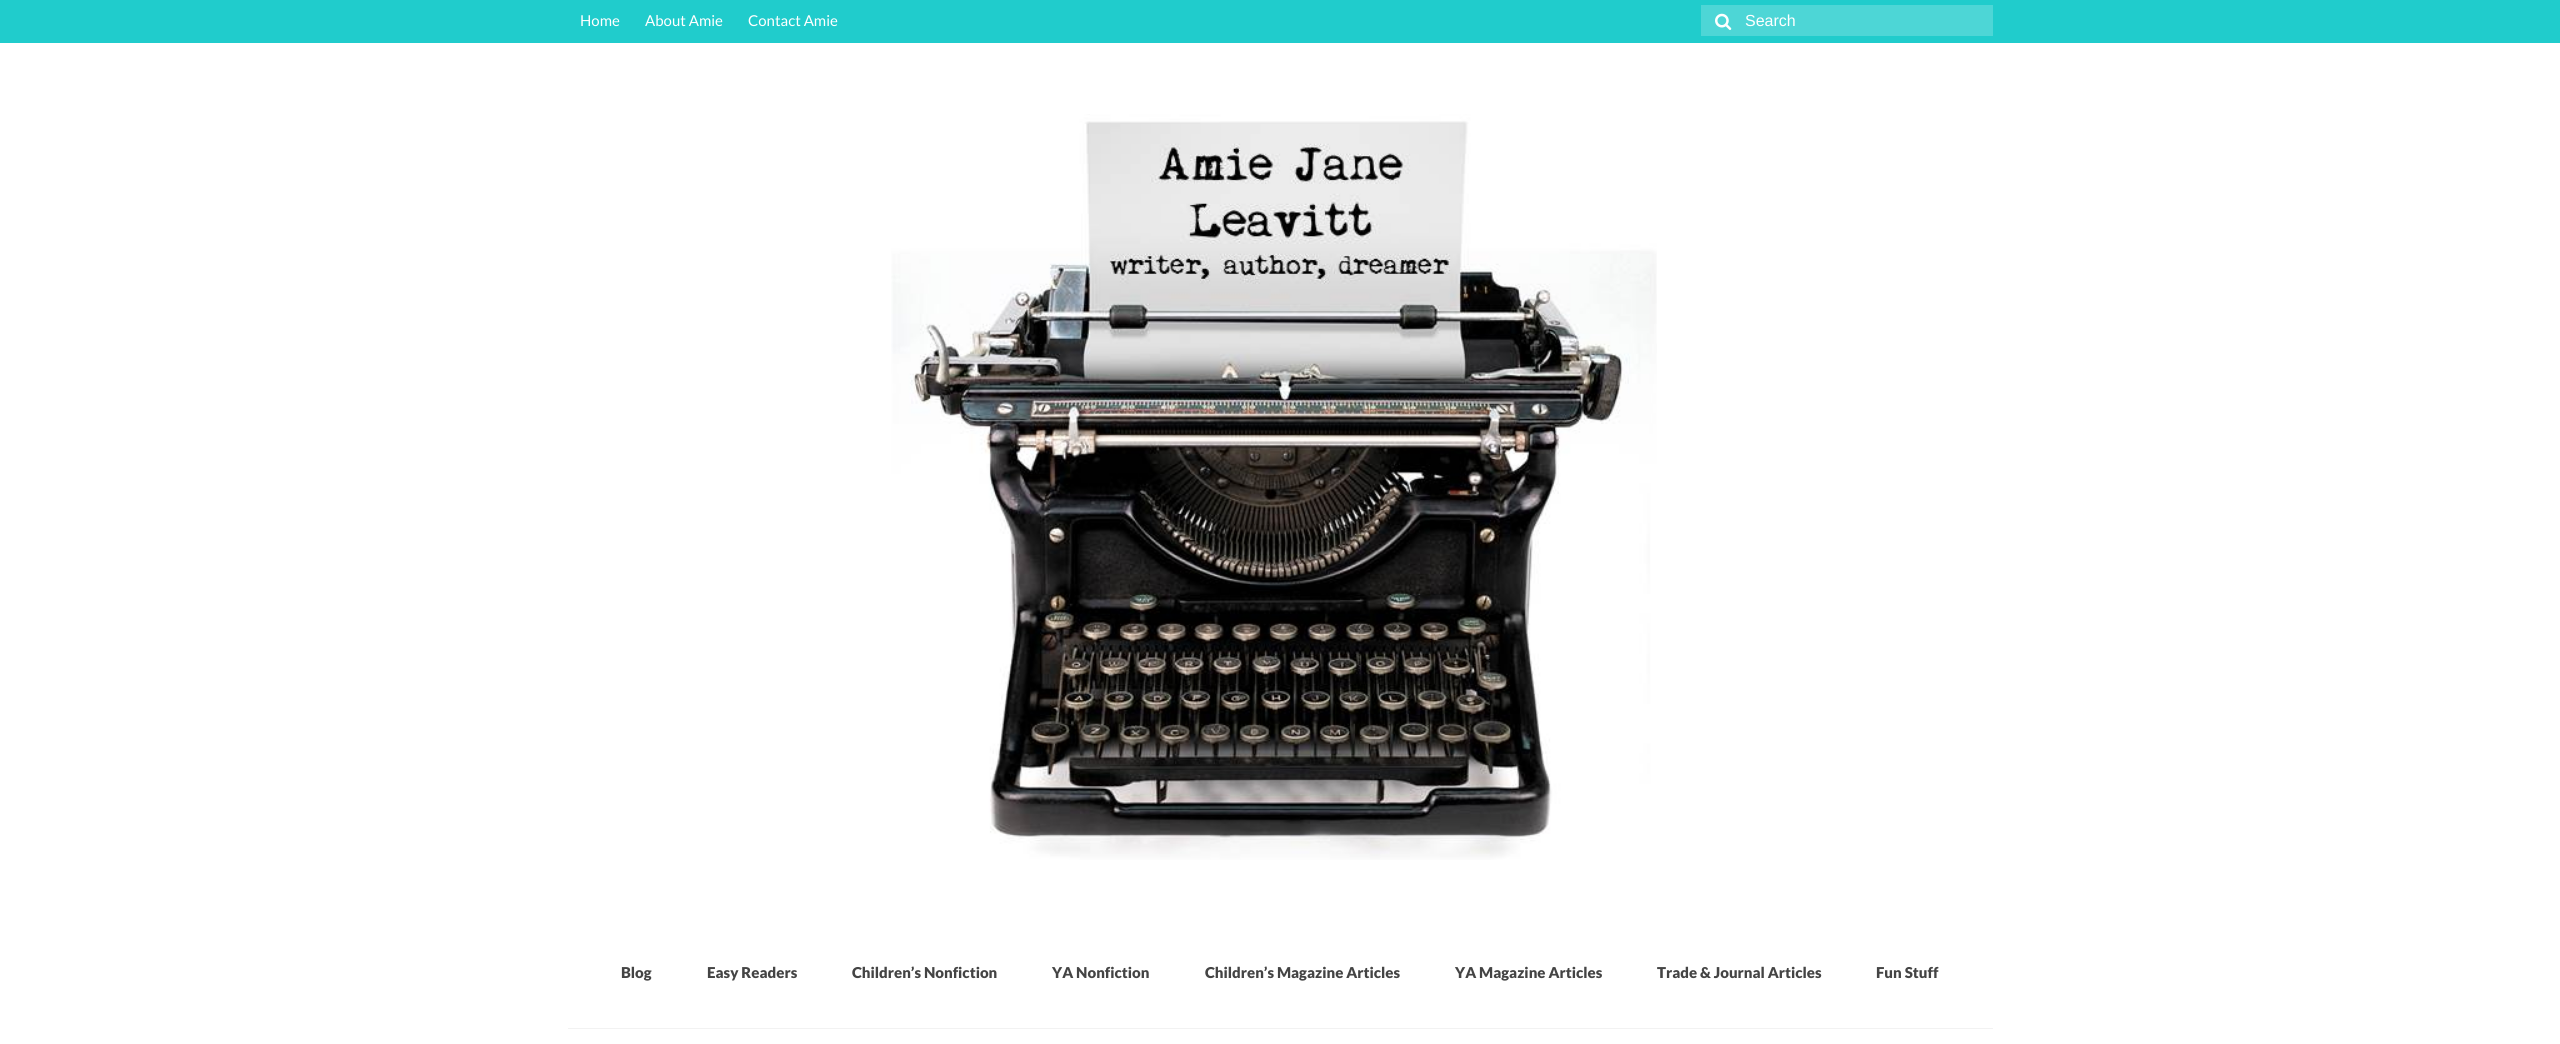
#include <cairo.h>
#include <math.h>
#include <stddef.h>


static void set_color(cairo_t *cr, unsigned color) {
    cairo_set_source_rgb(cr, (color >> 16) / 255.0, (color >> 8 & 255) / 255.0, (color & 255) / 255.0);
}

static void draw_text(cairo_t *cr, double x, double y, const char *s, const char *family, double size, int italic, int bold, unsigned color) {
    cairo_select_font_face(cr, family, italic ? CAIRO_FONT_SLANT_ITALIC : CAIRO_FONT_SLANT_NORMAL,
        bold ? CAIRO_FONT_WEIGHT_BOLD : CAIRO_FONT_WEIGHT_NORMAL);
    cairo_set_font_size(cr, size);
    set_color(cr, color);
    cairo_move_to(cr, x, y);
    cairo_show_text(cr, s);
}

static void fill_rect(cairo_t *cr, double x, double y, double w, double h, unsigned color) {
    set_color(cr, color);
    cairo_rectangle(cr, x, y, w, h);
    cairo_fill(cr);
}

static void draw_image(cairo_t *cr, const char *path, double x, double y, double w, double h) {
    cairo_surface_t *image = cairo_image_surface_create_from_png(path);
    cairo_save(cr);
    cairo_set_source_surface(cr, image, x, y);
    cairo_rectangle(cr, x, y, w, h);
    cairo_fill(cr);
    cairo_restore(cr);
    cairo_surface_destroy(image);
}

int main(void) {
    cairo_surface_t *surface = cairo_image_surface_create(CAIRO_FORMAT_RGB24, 2560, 1044);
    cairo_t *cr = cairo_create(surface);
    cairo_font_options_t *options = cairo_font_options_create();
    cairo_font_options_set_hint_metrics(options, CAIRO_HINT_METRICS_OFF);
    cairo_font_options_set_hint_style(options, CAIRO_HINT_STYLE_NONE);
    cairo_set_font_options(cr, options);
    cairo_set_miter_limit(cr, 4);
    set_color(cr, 0xFFFFFF);
    cairo_paint(cr);
    fill_rect(cr, 0, 0, 2560, 43, 0x20CCCC);
    draw_text(cr, 580, 26, "Home", "Lato", 15, 0, 0, 0xFFFFFF);
    draw_text(cr, 645, 26, "About Amie", "Lato", 15, 0, 0, 0xFFFFFF);
    draw_text(cr, 748, 26, "Contact Amie", "Lato", 15, 0, 0, 0xFFFFFF);
    fill_rect(cr, 1701, 5, 292, 31, 0x4DD6D6);
    draw_image(cr, "assets/img1.png", 1715, 13, 17, 17);
    draw_text(cr, 1745, 26, "Search", "Liberation Sans", 16, 0, 0, 0xFFFFFF);
    draw_image(cr, "assets/img2.png", 891, 114, 766, 746);
    draw_text(cr, 621, 978, "Blog", "Lato Black", 15, 0, 0, 0x444444);
    draw_text(cr, 707, 978, "Easy Readers", "Lato Black", 15, 0, 0, 0x444444);
    draw_text(cr, 852, 978, "Children’s Nonfiction", "Lato Black", 15, 0, 0, 0x444444);
    draw_text(cr, 1052, 978, "YA Nonfiction", "Lato Black", 15, 0, 0, 0x444444);
    draw_text(cr, 1205, 978, "Children’s Magazine Articles", "Lato Black", 15, 0, 0, 0x444444);
    draw_text(cr, 1455, 978, "YA Magazine Articles", "Lato Black", 15, 0, 0, 0x444444);
    draw_text(cr, 1657, 978, "Trade & Journal Articles", "Lato Black", 15, 0, 0, 0x444444);
    draw_text(cr, 1876, 978, "Fun Stuff", "Lato Black", 15, 0, 0, 0x444444);
    fill_rect(cr, 568, 1028, 1425, 1, 0xF2F2F2);
    cairo_surface_write_to_png(surface, "output.png");
    cairo_font_options_destroy(options);
    cairo_destroy(cr);
    cairo_surface_destroy(surface);
    return 0;
}
